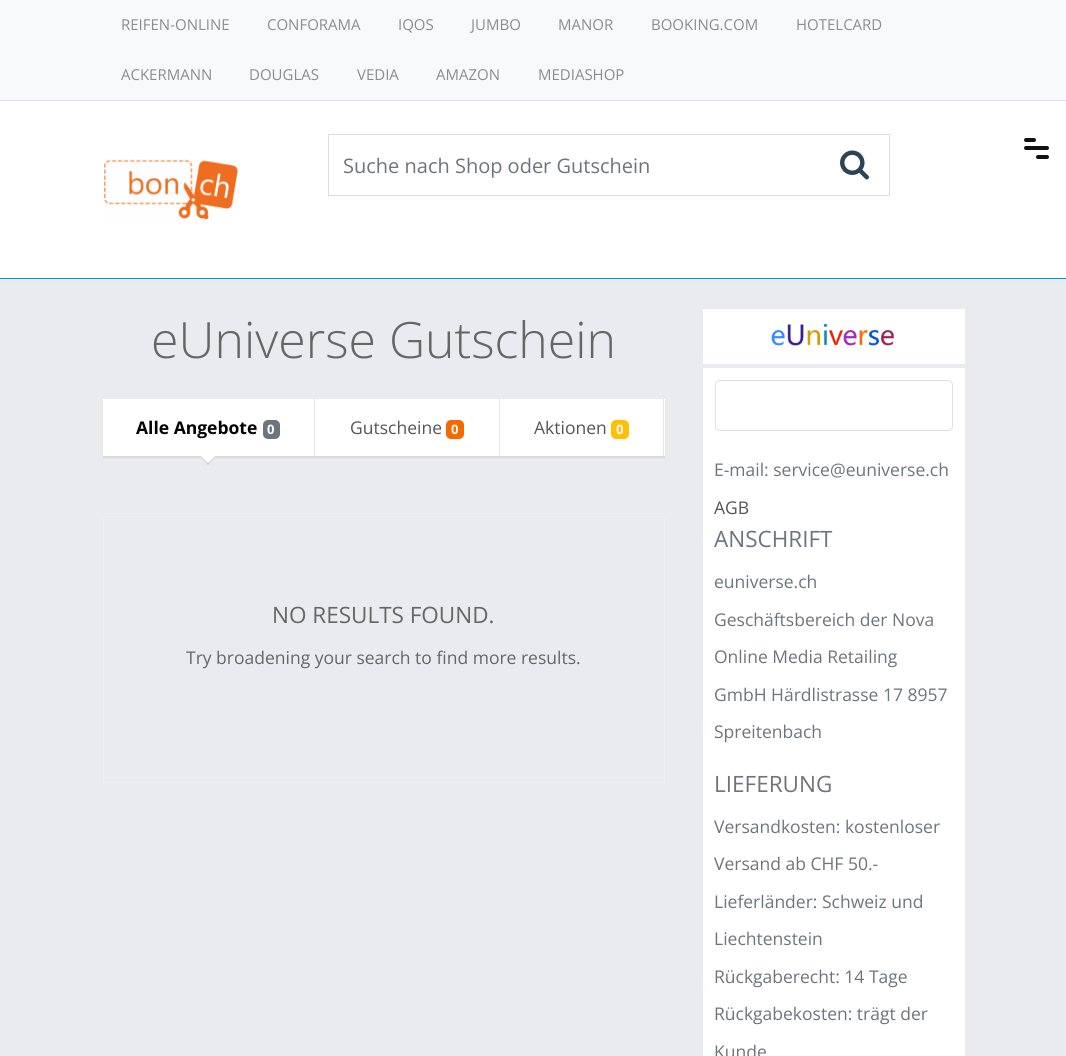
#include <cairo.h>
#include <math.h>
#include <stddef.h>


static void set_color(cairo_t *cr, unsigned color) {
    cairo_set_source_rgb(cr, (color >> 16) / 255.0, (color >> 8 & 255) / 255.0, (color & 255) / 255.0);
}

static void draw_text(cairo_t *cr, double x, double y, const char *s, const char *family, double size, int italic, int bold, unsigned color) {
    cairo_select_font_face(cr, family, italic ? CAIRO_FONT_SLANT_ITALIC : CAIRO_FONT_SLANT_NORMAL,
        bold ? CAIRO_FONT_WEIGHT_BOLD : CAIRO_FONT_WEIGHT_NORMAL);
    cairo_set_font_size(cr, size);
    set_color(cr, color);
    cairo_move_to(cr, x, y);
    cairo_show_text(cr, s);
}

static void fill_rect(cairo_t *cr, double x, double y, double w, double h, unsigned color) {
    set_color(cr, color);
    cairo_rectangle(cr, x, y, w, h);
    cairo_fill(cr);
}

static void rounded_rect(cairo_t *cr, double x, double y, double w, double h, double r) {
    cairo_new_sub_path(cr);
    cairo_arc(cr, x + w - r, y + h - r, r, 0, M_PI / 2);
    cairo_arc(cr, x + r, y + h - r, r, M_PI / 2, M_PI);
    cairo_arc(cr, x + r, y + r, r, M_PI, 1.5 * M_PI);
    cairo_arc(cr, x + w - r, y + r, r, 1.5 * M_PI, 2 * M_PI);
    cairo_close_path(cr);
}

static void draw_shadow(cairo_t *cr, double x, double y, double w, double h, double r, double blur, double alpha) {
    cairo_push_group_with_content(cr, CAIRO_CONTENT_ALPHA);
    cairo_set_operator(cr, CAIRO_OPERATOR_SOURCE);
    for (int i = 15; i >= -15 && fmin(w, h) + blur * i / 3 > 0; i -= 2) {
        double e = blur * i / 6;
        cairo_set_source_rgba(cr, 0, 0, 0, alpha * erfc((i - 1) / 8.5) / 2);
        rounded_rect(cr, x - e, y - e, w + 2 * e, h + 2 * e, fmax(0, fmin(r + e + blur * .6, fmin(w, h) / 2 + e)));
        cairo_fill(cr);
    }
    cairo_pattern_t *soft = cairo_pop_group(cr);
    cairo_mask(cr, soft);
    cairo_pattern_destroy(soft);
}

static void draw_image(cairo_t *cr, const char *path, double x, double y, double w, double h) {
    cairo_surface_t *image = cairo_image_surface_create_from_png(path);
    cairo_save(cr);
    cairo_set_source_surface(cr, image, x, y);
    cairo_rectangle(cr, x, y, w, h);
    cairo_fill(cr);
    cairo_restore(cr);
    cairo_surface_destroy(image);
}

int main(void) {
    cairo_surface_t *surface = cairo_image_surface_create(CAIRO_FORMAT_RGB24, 1066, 1056);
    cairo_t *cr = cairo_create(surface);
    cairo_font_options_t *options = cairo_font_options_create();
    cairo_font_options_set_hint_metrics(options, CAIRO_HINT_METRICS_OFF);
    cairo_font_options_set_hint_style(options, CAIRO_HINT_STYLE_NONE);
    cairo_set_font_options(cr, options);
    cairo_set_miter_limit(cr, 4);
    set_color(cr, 0xE9EBEE);
    cairo_paint(cr);
    fill_rect(cr, 0, 0, 1066, 100, 0xF8F9FA);
    fill_rect(cr, 0, 100, 1066, 1, 0xDEE2E6);
    draw_text(cr, 121, 30, "REIFEN-ONLINE", "Open Sans", 15, 0, 0, 0x8C8C8C);
    draw_text(cr, 267, 30, "CONFORAMA", "Open Sans", 15, 0, 0, 0x8C8C8C);
    draw_text(cr, 398, 30, "IQOS", "Open Sans", 15, 0, 0, 0x8C8C8C);
    draw_text(cr, 471, 30, "JUMBO", "Open Sans", 15, 0, 0, 0x8C8C8C);
    draw_text(cr, 558, 30, "MANOR", "Open Sans", 15, 0, 0, 0x8C8C8C);
    draw_text(cr, 651, 30, "BOOKING.COM", "Open Sans", 15, 0, 0, 0x8C8C8C);
    draw_text(cr, 796, 30, "HOTELCARD", "Open Sans", 15, 0, 0, 0x8C8C8C);
    draw_text(cr, 121, 80, "ACKERMANN", "Open Sans", 15, 0, 0, 0x8C8C8C);
    draw_text(cr, 249, 80, "DOUGLAS", "Open Sans", 15, 0, 0, 0x8C8C8C);
    draw_text(cr, 357, 80, "VEDIA", "Open Sans", 15, 0, 0, 0x8C8C8C);
    draw_text(cr, 436, 80, "AMAZON", "Open Sans", 15, 0, 0, 0x8C8C8C);
    draw_text(cr, 538, 80, "MEDIASHOP", "Open Sans", 15, 0, 0, 0x8C8C8C);
    fill_rect(cr, 0, 101, 1066, 177, 0xFFFFFF);
    set_color(cr, 0x111111);
    rounded_rect(cr, 1024, 138, 12, 4, 2);
    cairo_fill(cr);
    rounded_rect(cr, 1024, 146, 25, 4, 2);
    cairo_fill(cr);
    rounded_rect(cr, 1036, 155, 13, 4, 2);
    cairo_fill(cr);
    draw_image(cr, "assets/img1.png", 104, 159, 134, 61);
    cairo_rectangle(cr, 328.5, 134.5, 561, 61);
    set_color(cr, 0xDDDDDD);
    cairo_set_line_width(cr, 1);
    cairo_stroke(cr);
    draw_text(cr, 343, 173, "Suche nach Shop oder Gutschein", "Open Sans", 20, 0, 0, 0x6C757D);
    draw_image(cr, "assets/img2.png", 840, 150, 29, 30);
    fill_rect(cr, 0, 278, 1066, 1, 0x0093DD);
    draw_text(cr, 151, 358, "eUniverse Gutschein", "Open Sans Light", 50, 0, 0, 0x666666);
    set_color(cr, 0x000000);
    draw_shadow(cr, 103, 400, 562, 58, 0, 0.5, 0.08);
    fill_rect(cr, 103, 399, 562, 57, 0xFFFFFF);
    fill_rect(cr, 314, 399, 1, 57, 0xE6E6E6);
    draw_text(cr, 136, 434, "Alle Angebote", "Open Sans", 17.5, 0, 1, 0x000000);
    set_color(cr, 0x6C757D);
    rounded_rect(cr, 263, 420, 17, 19, 5);
    cairo_fill(cr);
    draw_text(cr, 267, 434, "0", "Open Sans", 13, 0, 1, 0xFFFFFF);
    cairo_new_path(cr);
    cairo_move_to(cr, 208, 450);
    cairo_line_to(cr, 215.5, 457.5);
    cairo_line_to(cr, 208, 465);
    cairo_line_to(cr, 200.5, 457.5);
    cairo_close_path(cr);
    cairo_fill(cr);
    set_color(cr, 0xD4D4D5);
    cairo_new_path(cr);
    cairo_move_to(cr, 214.5, 457);
    cairo_line_to(cr, 215.5, 457.5);
    cairo_line_to(cr, 208, 465);
    cairo_line_to(cr, 207, 464);
    cairo_close_path(cr);
    cairo_fill(cr);
    cairo_new_path(cr);
    cairo_move_to(cr, 201.5, 457);
    cairo_line_to(cr, 209, 464);
    cairo_line_to(cr, 208, 465);
    cairo_line_to(cr, 200.5, 457.5);
    cairo_close_path(cr);
    cairo_fill(cr);
    fill_rect(cr, 499, 399, 1, 57, 0xE6E6E6);
    draw_text(cr, 350, 434, "Gutscheine", "Open Sans", 17.5, 0, 0, 0x555555);
    set_color(cr, 0xF46A00);
    rounded_rect(cr, 446, 420, 18, 19, 5);
    cairo_fill(cr);
    draw_text(cr, 451, 434, "0", "Open Sans", 13, 0, 1, 0xF8F9FA);
    fill_rect(cr, 663, 399, 1, 57, 0xE6E6E6);
    draw_text(cr, 534, 434, "Aktionen", "Open Sans", 17.5, 0, 0, 0x555555);
    set_color(cr, 0xFFC107);
    rounded_rect(cr, 611, 420, 18, 19, 5);
    cairo_fill(cr);
    draw_text(cr, 616, 434, "0", "Open Sans", 13, 0, 1, 0xF8F9FA);
    cairo_rectangle(cr, 103.5, 516.5, 561, 266);
    set_color(cr, 0xEFEFEF);
    cairo_stroke(cr);
    draw_text(cr, 272, 623, "NO RESULTS FOUND.", "Open Sans", 22.5, 0, 0, 0x666666);
    draw_text(cr, 186, 664, "Try broadening your search to find more results.", "Open Sans", 17.5, 0, 0, 0x666666);
    fill_rect(cr, 703, 309, 262, 55, 0xFFFFFF);
    draw_image(cr, "assets/img3.png", 771, 323, 123, 23);
    fill_rect(cr, 703, 368, 262, 688, 0xFFFFFF);
    rounded_rect(cr, 715.5, 380.5, 237, 50, 4.5);
    set_color(cr, 0xDEE2E6);
    cairo_stroke(cr);
    draw_text(cr, 714, 476, "E-mail: service@euniverse.ch", "Open Sans", 17.5, 0, 0, 0x6C757D);
    draw_text(cr, 714, 514, "AGB", "Open Sans", 17.5, 0, 0, 0x555555);
    draw_text(cr, 714, 547, "ANSCHRIFT", "Open Sans", 22.5, 0, 0, 0x6C757D);
    draw_text(cr, 714, 588, "euniverse.ch", "Open Sans", 17.5, 0, 0, 0x6C757D);
    draw_text(cr, 714, 626, "Geschäftsbereich der Nova", "Open Sans", 17.5, 0, 0, 0x6C757D);
    draw_text(cr, 714, 663, "Online Media Retailing", "Open Sans", 17.5, 0, 0, 0x6C757D);
    draw_text(cr, 714, 701, "GmbH Härdlistrasse 17 8957", "Open Sans", 17.5, 0, 0, 0x6C757D);
    draw_text(cr, 714, 738, "Spreitenbach", "Open Sans", 17.5, 0, 0, 0x6C757D);
    draw_text(cr, 714, 792, "LIEFERUNG", "Open Sans", 22.5, 0, 0, 0x6C757D);
    draw_text(cr, 714, 833, "Versandkosten: kostenloser", "Open Sans", 17.5, 0, 0, 0x6C757D);
    draw_text(cr, 714, 870, "Versand ab CHF 50.-", "Open Sans", 17.5, 0, 0, 0x6C757D);
    draw_text(cr, 714, 908, "Lieferländer: Schweiz und", "Open Sans", 17.5, 0, 0, 0x6C757D);
    draw_text(cr, 714, 945, "Liechtenstein", "Open Sans", 17.5, 0, 0, 0x6C757D);
    draw_text(cr, 714, 983, "Rückgaberecht: 14 Tage", "Open Sans", 17.5, 0, 0, 0x6C757D);
    draw_text(cr, 714, 1020, "Rückgabekosten: trägt der", "Open Sans", 17.5, 0, 0, 0x6C757D);
    draw_text(cr, 714, 1058, "Kunde", "Open Sans", 17.5, 0, 0, 0x6C757D);
    cairo_surface_write_to_png(surface, "output.png");
    cairo_font_options_destroy(options);
    cairo_destroy(cr);
    cairo_surface_destroy(surface);
    return 0;
}
